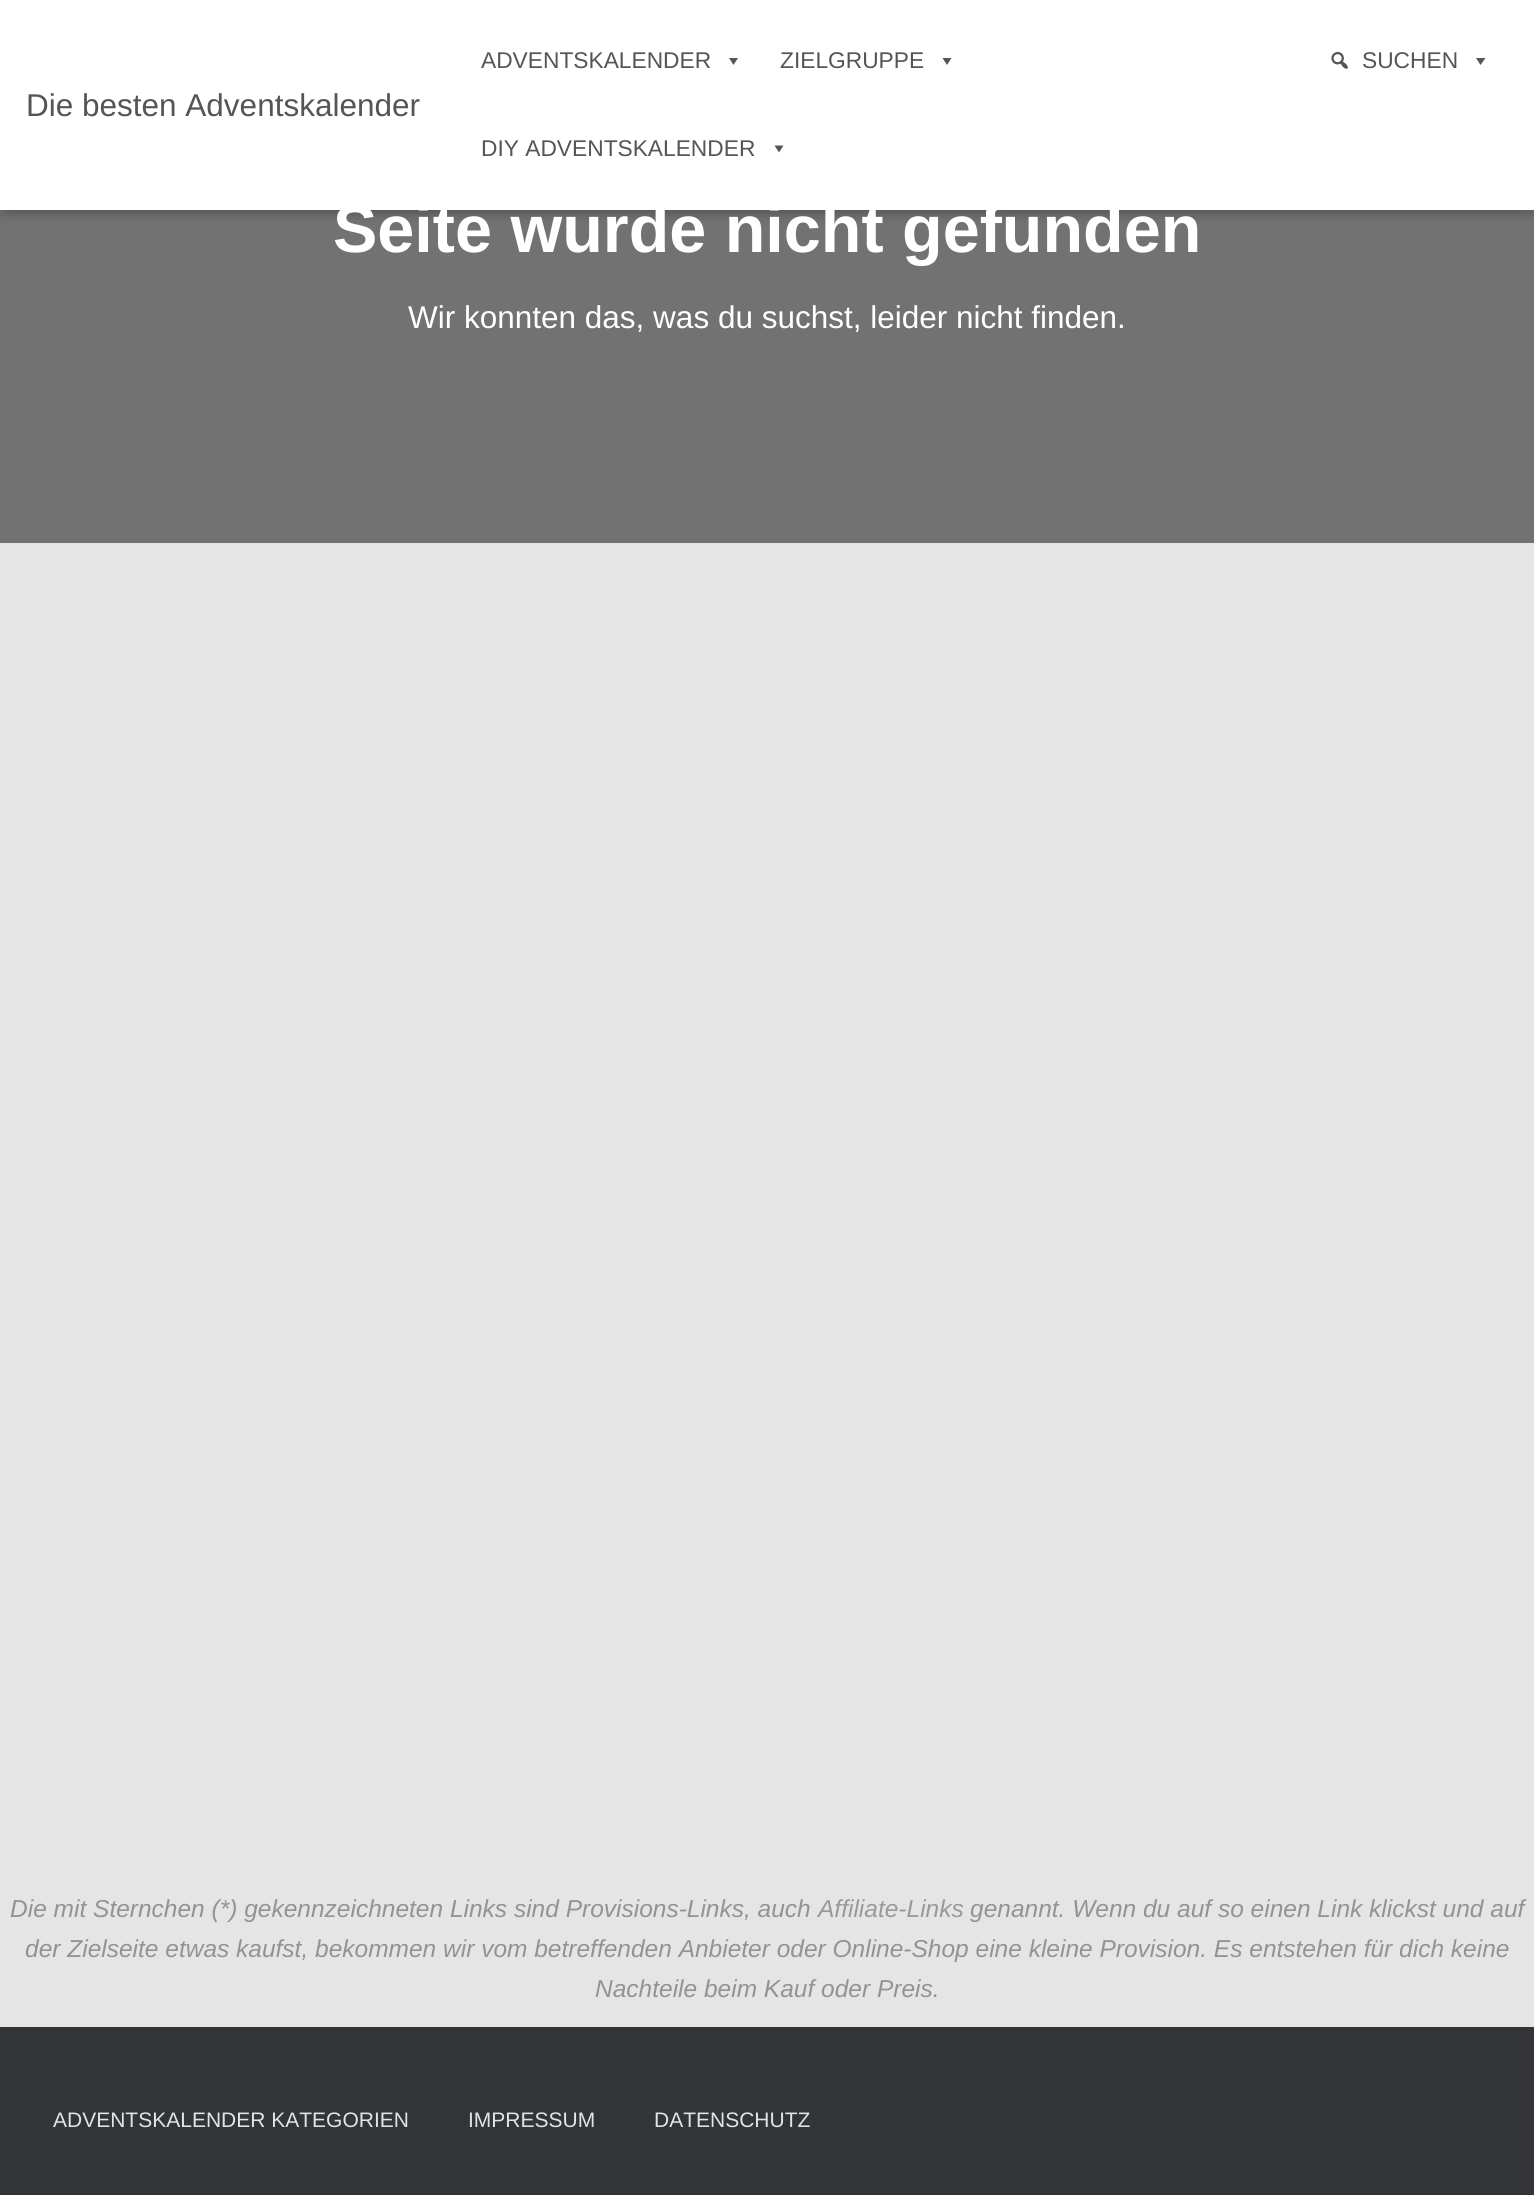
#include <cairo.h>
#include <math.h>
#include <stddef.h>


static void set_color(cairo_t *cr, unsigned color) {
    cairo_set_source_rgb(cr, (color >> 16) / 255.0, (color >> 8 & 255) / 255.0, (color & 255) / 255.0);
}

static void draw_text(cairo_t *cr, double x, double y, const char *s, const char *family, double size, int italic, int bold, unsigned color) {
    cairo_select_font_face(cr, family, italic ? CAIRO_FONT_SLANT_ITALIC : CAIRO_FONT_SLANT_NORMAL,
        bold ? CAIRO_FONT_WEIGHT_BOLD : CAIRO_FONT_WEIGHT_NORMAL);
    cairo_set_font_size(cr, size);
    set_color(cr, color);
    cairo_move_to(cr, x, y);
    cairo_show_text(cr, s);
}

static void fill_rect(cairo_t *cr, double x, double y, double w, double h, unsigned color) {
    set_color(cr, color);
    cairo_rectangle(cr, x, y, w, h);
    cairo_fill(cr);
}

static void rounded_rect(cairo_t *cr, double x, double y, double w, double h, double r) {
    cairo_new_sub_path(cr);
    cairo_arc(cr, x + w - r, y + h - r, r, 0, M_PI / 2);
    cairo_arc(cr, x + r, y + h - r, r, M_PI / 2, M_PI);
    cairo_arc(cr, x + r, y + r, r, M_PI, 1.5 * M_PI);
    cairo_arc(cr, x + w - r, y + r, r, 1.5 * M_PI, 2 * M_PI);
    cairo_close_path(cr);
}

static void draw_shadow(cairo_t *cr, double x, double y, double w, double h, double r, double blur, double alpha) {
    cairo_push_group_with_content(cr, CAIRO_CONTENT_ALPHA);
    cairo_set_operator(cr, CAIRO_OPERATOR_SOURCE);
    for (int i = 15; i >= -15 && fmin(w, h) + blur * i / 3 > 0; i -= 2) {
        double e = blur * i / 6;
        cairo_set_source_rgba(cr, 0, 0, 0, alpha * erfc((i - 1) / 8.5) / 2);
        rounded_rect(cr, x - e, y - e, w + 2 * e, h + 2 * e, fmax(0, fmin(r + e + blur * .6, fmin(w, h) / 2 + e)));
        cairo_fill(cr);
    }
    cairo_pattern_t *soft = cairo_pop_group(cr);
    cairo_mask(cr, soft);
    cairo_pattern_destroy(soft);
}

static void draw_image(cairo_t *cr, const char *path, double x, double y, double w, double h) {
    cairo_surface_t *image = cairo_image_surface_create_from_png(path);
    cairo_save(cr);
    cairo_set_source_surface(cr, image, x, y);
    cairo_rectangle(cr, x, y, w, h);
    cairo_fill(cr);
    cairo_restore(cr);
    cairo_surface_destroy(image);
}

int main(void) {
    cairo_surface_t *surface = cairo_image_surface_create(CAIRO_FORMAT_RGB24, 1534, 2195);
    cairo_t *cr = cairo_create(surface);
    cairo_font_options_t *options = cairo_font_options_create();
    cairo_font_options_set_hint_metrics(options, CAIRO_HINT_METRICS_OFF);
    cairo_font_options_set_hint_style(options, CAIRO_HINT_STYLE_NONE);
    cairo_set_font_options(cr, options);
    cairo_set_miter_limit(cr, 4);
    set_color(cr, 0xE5E5E5);
    cairo_paint(cr);
    fill_rect(cr, 0, 210, 1534, 333, 0x727272);
    set_color(cr, 0x000000);
    draw_shadow(cr, 4, 11, 1527, 203, 0, 4.5, 0.1);
    draw_shadow(cr, 0, 2, 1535, 210, 0, 9, 0.12);
    draw_shadow(cr, 11, 12, 1513, 189, 0, 9, 0.42);
    fill_rect(cr, 0, 0, 1534, 210, 0xFFFFFF);
    draw_text(cr, 26, 116, "Die besten Adventskalender", "Liberation Sans", 31.5, 0, 0, 0x555555);
    draw_text(cr, 481, 68, "ADVENTSKALENDER", "Liberation Sans", 22.75, 0, 0, 0x555555);
    cairo_new_path(cr);
    cairo_move_to(cr, 738, 58);
    cairo_line_to(cr, 733.5, 65);
    cairo_line_to(cr, 729, 58);
    cairo_close_path(cr);
    cairo_fill(cr);
    draw_text(cr, 780, 68, "ZIELGRUPPE", "Liberation Sans", 22.75, 0, 0, 0x555555);
    cairo_new_path(cr);
    cairo_move_to(cr, 951.5, 58);
    cairo_line_to(cr, 947, 65);
    cairo_line_to(cr, 942.5, 58);
    cairo_close_path(cr);
    cairo_fill(cr);
    draw_image(cr, "assets/img1.png", 1331, 51, 17, 18);
    draw_text(cr, 1362, 68, "SUCHEN", "Liberation Sans", 22.75, 0, 0, 0x555555);
    cairo_new_path(cr);
    cairo_move_to(cr, 1485.5, 58);
    cairo_line_to(cr, 1480.5, 65);
    cairo_line_to(cr, 1476, 58);
    cairo_close_path(cr);
    cairo_fill(cr);
    draw_text(cr, 481, 156, "DIY ADVENTSKALENDER", "Liberation Sans", 22.75, 0, 0, 0x555555);
    cairo_new_path(cr);
    cairo_move_to(cr, 783.5, 145.5);
    cairo_line_to(cr, 779, 152.5);
    cairo_line_to(cr, 774.5, 145.5);
    cairo_close_path(cr);
    cairo_fill(cr);
    draw_text(cr, 333, 252, "Seite wurde nicht gefunden", "Liberation Sans", 66.5, 0, 1, 0xFFFFFF);
    draw_text(cr, 408, 328, "Wir konnten das, was du suchst, leider nicht finden.", "Liberation Sans", 31.5, 0, 0, 0xFFFFFF);
    draw_text(cr, 10, 1917, "Die mit Sternchen (*) gekennzeichneten Links sind Provisions-Links, auch", "Liberation Sans", 24.5, 1, 0, 0x939393);
    draw_text(cr, 818, 1917, "Affiliate-Links", "Liberation Sans", 24.5, 1, 0, 0x999999);
    draw_text(cr, 970, 1917, "genannt. Wenn du auf so einen Link klickst und auf", "Liberation Sans", 24.5, 1, 0, 0x939393);
    draw_text(cr, 25, 1957, "der Zielseite etwas kaufst, bekommen wir vom betreffenden Anbieter oder Online-Shop eine kleine Provision. Es entstehen für dich keine", "Liberation Sans", 24.5, 1, 0, 0x939393);
    draw_text(cr, 595, 1997, "Nachteile beim Kauf oder Preis.", "Liberation Sans", 24.5, 1, 0, 0x939393);
    fill_rect(cr, 0, 2027, 1534, 168, 0x323437);
    draw_text(cr, 53, 2127, "ADVENTSKALENDER KATEGORIEN", "Liberation Sans", 21, 0, 0, 0xE2E3E3);
    draw_text(cr, 468, 2127, "IMPRESSUM", "Liberation Sans", 21, 0, 0, 0xE2E3E3);
    draw_text(cr, 654, 2127, "DATENSCHUTZ", "Liberation Sans", 21, 0, 0, 0xE2E3E3);
    cairo_surface_write_to_png(surface, "output.png");
    cairo_font_options_destroy(options);
    cairo_destroy(cr);
    cairo_surface_destroy(surface);
    return 0;
}
